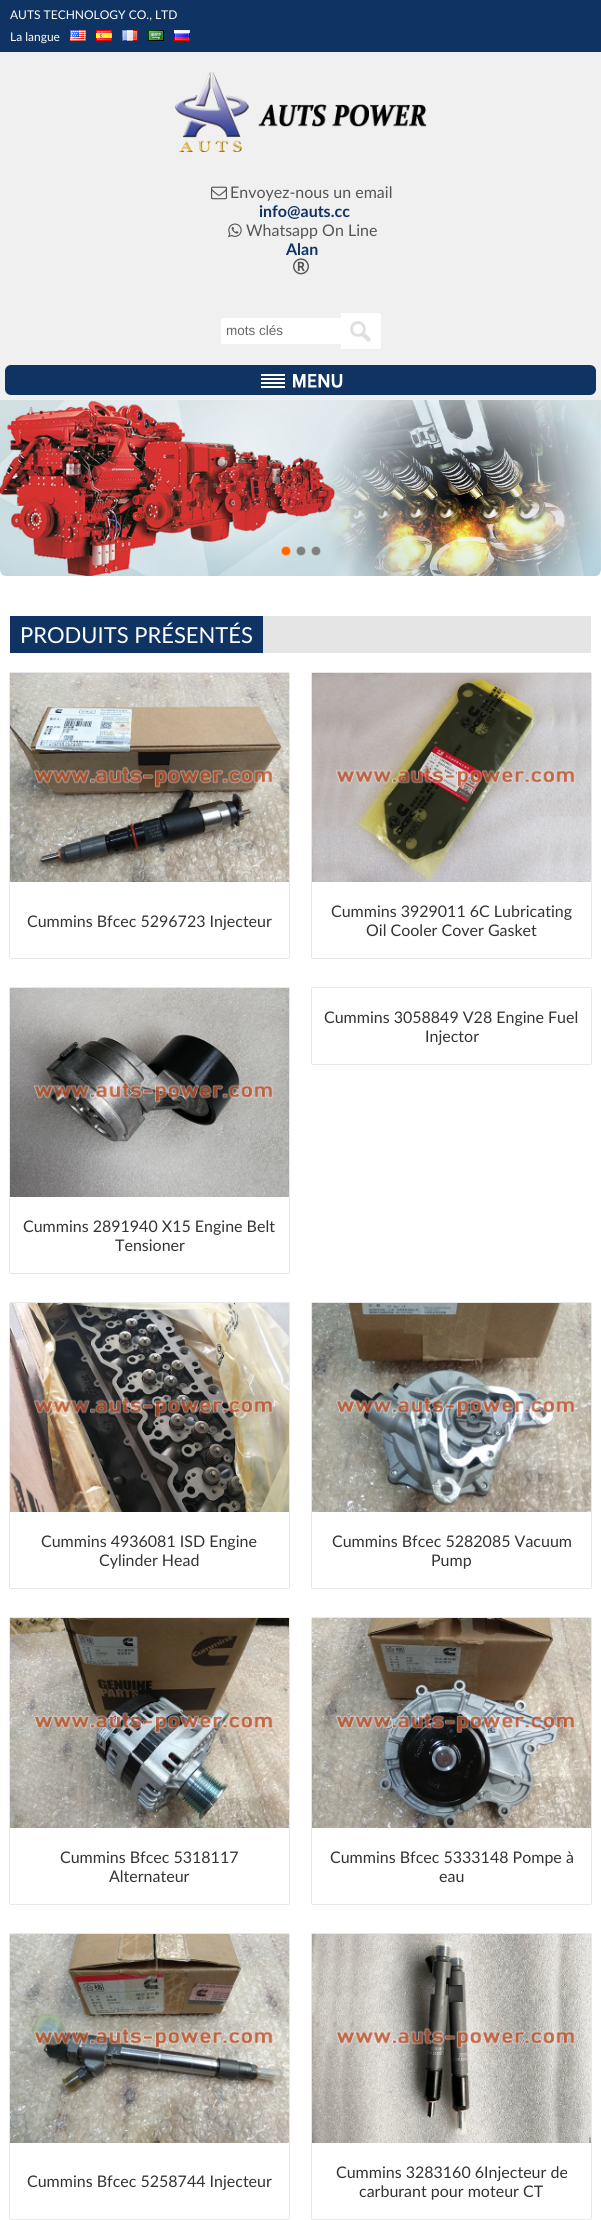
#include <cairo.h>
#include <math.h>
#include <stddef.h>


static void set_color(cairo_t *cr, unsigned color) {
    cairo_set_source_rgb(cr, (color >> 16) / 255.0, (color >> 8 & 255) / 255.0, (color & 255) / 255.0);
}

static void draw_text(cairo_t *cr, double x, double y, const char *s, const char *family, double size, int italic, int bold, unsigned color) {
    cairo_select_font_face(cr, family, italic ? CAIRO_FONT_SLANT_ITALIC : CAIRO_FONT_SLANT_NORMAL,
        bold ? CAIRO_FONT_WEIGHT_BOLD : CAIRO_FONT_WEIGHT_NORMAL);
    cairo_set_font_size(cr, size);
    set_color(cr, color);
    cairo_move_to(cr, x, y);
    cairo_show_text(cr, s);
}

static void fill_rect(cairo_t *cr, double x, double y, double w, double h, unsigned color) {
    set_color(cr, color);
    cairo_rectangle(cr, x, y, w, h);
    cairo_fill(cr);
}

static void rounded_rect(cairo_t *cr, double x, double y, double w, double h, double r) {
    cairo_new_sub_path(cr);
    cairo_arc(cr, x + w - r, y + h - r, r, 0, M_PI / 2);
    cairo_arc(cr, x + r, y + h - r, r, M_PI / 2, M_PI);
    cairo_arc(cr, x + r, y + r, r, M_PI, 1.5 * M_PI);
    cairo_arc(cr, x + w - r, y + r, r, 1.5 * M_PI, 2 * M_PI);
    cairo_close_path(cr);
}

static void draw_shadow(cairo_t *cr, double x, double y, double w, double h, double r, double blur, double alpha) {
    cairo_push_group_with_content(cr, CAIRO_CONTENT_ALPHA);
    cairo_set_operator(cr, CAIRO_OPERATOR_SOURCE);
    for (int i = 15; i >= -15 && fmin(w, h) + blur * i / 3 > 0; i -= 2) {
        double e = blur * i / 6;
        cairo_set_source_rgba(cr, 0, 0, 0, alpha * erfc((i - 1) / 8.5) / 2);
        rounded_rect(cr, x - e, y - e, w + 2 * e, h + 2 * e, fmax(0, fmin(r + e + blur * .6, fmin(w, h) / 2 + e)));
        cairo_fill(cr);
    }
    cairo_pattern_t *soft = cairo_pop_group(cr);
    cairo_mask(cr, soft);
    cairo_pattern_destroy(soft);
}

static void draw_image(cairo_t *cr, const char *path, double x, double y, double w, double h) {
    cairo_surface_t *image = cairo_image_surface_create_from_png(path);
    cairo_save(cr);
    cairo_set_source_surface(cr, image, x, y);
    cairo_rectangle(cr, x, y, w, h);
    cairo_fill(cr);
    cairo_restore(cr);
    cairo_surface_destroy(image);
}

int main(void) {
    cairo_surface_t *surface = cairo_image_surface_create(CAIRO_FORMAT_RGB24, 601, 2220);
    cairo_t *cr = cairo_create(surface);
    cairo_font_options_t *options = cairo_font_options_create();
    cairo_font_options_set_hint_metrics(options, CAIRO_HINT_METRICS_OFF);
    cairo_font_options_set_hint_style(options, CAIRO_HINT_STYLE_NONE);
    cairo_set_font_options(cr, options);
    cairo_set_miter_limit(cr, 4);
    set_color(cr, 0xFFFFFF);
    cairo_paint(cr);
    fill_rect(cr, 0, 0, 601, 52, 0x0F3463);
    draw_text(cr, 10, 19, "AUTS TECHNOLOGY CO., LTD", "Lato", 12, 0, 0, 0xFFFFFF);
    draw_text(cr, 10, 41, "La langue", "Lato", 12, 0, 0, 0xFFFFFF);
    draw_image(cr, "assets/img1.png", 70, 30, 16, 11);
    draw_image(cr, "assets/img2.png", 96, 30, 16, 11);
    draw_image(cr, "assets/img3.png", 122, 30, 16, 11);
    draw_image(cr, "assets/img4.png", 148, 30, 16, 11);
    draw_image(cr, "assets/img5.png", 174, 30, 16, 11);
    fill_rect(cr, 0, 52, 601, 348, 0xF0F0F0);
    draw_image(cr, "assets/img6.png", 175, 72, 252, 80);
    draw_image(cr, "assets/img7.png", 211, 186, 16, 14);
    draw_text(cr, 230, 198, "Envoyez-nous un email", "Lato", 16, 0, 0, 0x555555);
    draw_text(cr, 259, 217, "info@auts.cc", "Lato", 16, 0, 1, 0x0F3463);
    draw_image(cr, "assets/img8.png", 228, 223, 14, 15);
    draw_text(cr, 246, 236, "Whatsapp On Line", "Lato", 16, 0, 0, 0x555555);
    draw_text(cr, 286, 255, "Alan", "Lato", 16, 0, 1, 0x0F3463);
    draw_image(cr, "assets/img9.png", 293, 258, 16, 17);
    set_color(cr, 0xFFFFFF);
    cairo_new_path(cr);
    cairo_move_to(cr, 223.5, 318);
    cairo_line_to(cr, 341, 318);
    cairo_line_to(cr, 341, 344);
    cairo_line_to(cr, 223.5, 344);
    cairo_curve_to(cr, 222, 344, 221, 343, 221, 341.5);
    cairo_line_to(cr, 221, 320.5);
    cairo_curve_to(cr, 221, 319, 222, 318, 223.5, 318);
    cairo_close_path(cr);
    cairo_fill(cr);
    cairo_set_fill_rule(cr, CAIRO_FILL_RULE_EVEN_ODD);
    cairo_new_path(cr);
    cairo_move_to(cr, 224, 318);
    cairo_line_to(cr, 341, 318);
    cairo_line_to(cr, 341, 344);
    cairo_line_to(cr, 224, 344);
    cairo_curve_to(cr, 222, 344, 221, 343, 221, 341);
    cairo_line_to(cr, 221, 321);
    cairo_curve_to(cr, 221, 319, 222, 318, 224, 318);
    cairo_close_path(cr);
    cairo_move_to(cr, 224, 319);
    cairo_line_to(cr, 341, 319);
    cairo_line_to(cr, 341, 343);
    cairo_line_to(cr, 224, 343);
    cairo_curve_to(cr, 223, 343, 222, 342, 222, 341);
    cairo_line_to(cr, 222, 321);
    cairo_curve_to(cr, 222, 320, 223, 319, 224, 319);
    cairo_close_path(cr);
    cairo_fill(cr);
    draw_text(cr, 226, 335, "mots clés", "Liberation Sans", 13.5, 0, 0, 0x666666);
    set_color(cr, 0xFFFFFF);
    cairo_new_path(cr);
    cairo_move_to(cr, 341, 313);
    cairo_line_to(cr, 378.5, 313);
    cairo_curve_to(cr, 380, 313, 381, 314, 381, 315.5);
    cairo_line_to(cr, 381, 346.5);
    cairo_curve_to(cr, 381, 348, 380, 349, 378.5, 349);
    cairo_line_to(cr, 341, 349);
    cairo_close_path(cr);
    cairo_fill(cr);
    draw_image(cr, "assets/img10.png", 350, 321, 21, 21);
    cairo_new_path(cr);
    cairo_move_to(cr, 341.5, 313.5);
    cairo_line_to(cr, 378.5, 313.5);
    cairo_curve_to(cr, 379.5, 313.5, 380.5, 314.5, 380.5, 315.5);
    cairo_line_to(cr, 380.5, 346.5);
    cairo_curve_to(cr, 380.5, 347.5, 379.5, 348.5, 378.5, 348.5);
    cairo_line_to(cr, 341.5, 348.5);
    cairo_close_path(cr);
    cairo_set_line_width(cr, 1);
    cairo_stroke(cr);
    set_color(cr, 0x0F3463);
    rounded_rect(cr, 5, 365, 591, 30, 6);
    cairo_fill(cr);
    draw_image(cr, "assets/img11.png", 261, 374, 82, 14);
    draw_image(cr, "assets/img12.png", 0, 400, 601, 176);
    draw_image(cr, "assets/img13.png", 281, 546, 10, 10);
    draw_image(cr, "assets/img14.png", 296, 546, 10, 10);
    draw_image(cr, "assets/img15.png", 311, 546, 10, 10);
    fill_rect(cr, 263, 616, 328, 37, 0xE5E5E5);
    fill_rect(cr, 10, 616, 253, 37, 0x0F3463);
    draw_text(cr, 20, 643, "PRODUITS PRÉSENTÉS", "Lato", 22, 0, 0, 0xFFFFFF);
    cairo_save(cr);
    cairo_new_path(cr);
    cairo_move_to(cr, 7, 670);
    cairo_line_to(cr, 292, 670);
    cairo_line_to(cr, 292, 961);
    cairo_line_to(cr, 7, 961);
    cairo_close_path(cr);
    cairo_move_to(cr, 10, 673);
    cairo_line_to(cr, 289, 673);
    cairo_line_to(cr, 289, 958);
    cairo_line_to(cr, 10, 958);
    cairo_close_path(cr);
    cairo_clip(cr);
    set_color(cr, 0x888888);
    draw_shadow(cr, 10, 673, 279, 285, 0, 0.5, 0.8);
    cairo_restore(cr);
    draw_image(cr, "assets/img16.png", 10, 673, 279, 209);
    draw_text(cr, 27, 927, "Cummins Bfcec 5296723 Injecteur", "Lato", 16, 0, 0, 0x333333);
    cairo_save(cr);
    cairo_new_path(cr);
    cairo_move_to(cr, 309, 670);
    cairo_line_to(cr, 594, 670);
    cairo_line_to(cr, 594, 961);
    cairo_line_to(cr, 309, 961);
    cairo_close_path(cr);
    cairo_move_to(cr, 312, 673);
    cairo_line_to(cr, 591, 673);
    cairo_line_to(cr, 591, 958);
    cairo_line_to(cr, 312, 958);
    cairo_close_path(cr);
    cairo_clip(cr);
    set_color(cr, 0x888888);
    draw_shadow(cr, 312, 673, 279, 285, 0, 0.5, 0.8);
    cairo_restore(cr);
    draw_image(cr, "assets/img17.png", 312, 673, 279, 209);
    draw_text(cr, 331, 917, "Cummins 3929011 6C Lubricating", "Lato", 16, 0, 0, 0x333333);
    draw_text(cr, 366, 936, "Oil Cooler Cover Gasket", "Lato", 16, 0, 0, 0x333333);
    cairo_save(cr);
    cairo_new_path(cr);
    cairo_move_to(cr, 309, 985);
    cairo_line_to(cr, 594, 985);
    cairo_line_to(cr, 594, 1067);
    cairo_line_to(cr, 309, 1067);
    cairo_close_path(cr);
    cairo_move_to(cr, 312, 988);
    cairo_line_to(cr, 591, 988);
    cairo_line_to(cr, 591, 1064);
    cairo_line_to(cr, 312, 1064);
    cairo_close_path(cr);
    cairo_clip(cr);
    set_color(cr, 0x888888);
    draw_shadow(cr, 312, 988, 279, 76, 0, 0.5, 0.8);
    cairo_restore(cr);
    draw_text(cr, 324, 1023, "Cummins 3058849 V28 Engine Fuel", "Lato", 16, 0, 0, 0x333333);
    draw_text(cr, 425, 1042, "Injector", "Lato", 16, 0, 0, 0x333333);
    cairo_save(cr);
    cairo_new_path(cr);
    cairo_move_to(cr, 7, 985);
    cairo_line_to(cr, 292, 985);
    cairo_line_to(cr, 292, 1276);
    cairo_line_to(cr, 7, 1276);
    cairo_close_path(cr);
    cairo_move_to(cr, 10, 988);
    cairo_line_to(cr, 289, 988);
    cairo_line_to(cr, 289, 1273);
    cairo_line_to(cr, 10, 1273);
    cairo_close_path(cr);
    cairo_clip(cr);
    set_color(cr, 0x888888);
    draw_shadow(cr, 10, 988, 279, 285, 0, 0.5, 0.8);
    cairo_restore(cr);
    draw_image(cr, "assets/img18.png", 10, 988, 279, 209);
    draw_text(cr, 23, 1232, "Cummins 2891940 X15 Engine Belt", "Lato", 16, 0, 0, 0x333333);
    draw_text(cr, 115, 1251, "Tensioner", "Lato", 16, 0, 0, 0x333333);
    cairo_save(cr);
    cairo_new_path(cr);
    cairo_move_to(cr, 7, 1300);
    cairo_line_to(cr, 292, 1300);
    cairo_line_to(cr, 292, 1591);
    cairo_line_to(cr, 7, 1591);
    cairo_close_path(cr);
    cairo_move_to(cr, 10, 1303);
    cairo_line_to(cr, 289, 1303);
    cairo_line_to(cr, 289, 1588);
    cairo_line_to(cr, 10, 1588);
    cairo_close_path(cr);
    cairo_clip(cr);
    set_color(cr, 0x888888);
    draw_shadow(cr, 10, 1303, 279, 285, 0, 0.5, 0.8);
    cairo_restore(cr);
    draw_image(cr, "assets/img19.png", 10, 1303, 279, 209);
    draw_text(cr, 41, 1547, "Cummins 4936081 ISD Engine", "Lato", 16, 0, 0, 0x333333);
    draw_text(cr, 99, 1566, "Cylinder Head", "Lato", 16, 0, 0, 0x333333);
    cairo_save(cr);
    cairo_new_path(cr);
    cairo_move_to(cr, 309, 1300);
    cairo_line_to(cr, 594, 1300);
    cairo_line_to(cr, 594, 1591);
    cairo_line_to(cr, 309, 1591);
    cairo_close_path(cr);
    cairo_move_to(cr, 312, 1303);
    cairo_line_to(cr, 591, 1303);
    cairo_line_to(cr, 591, 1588);
    cairo_line_to(cr, 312, 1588);
    cairo_close_path(cr);
    cairo_clip(cr);
    set_color(cr, 0x888888);
    draw_shadow(cr, 312, 1303, 279, 285, 0, 0.5, 0.8);
    cairo_restore(cr);
    draw_image(cr, "assets/img20.png", 312, 1303, 279, 209);
    draw_text(cr, 332, 1547, "Cummins Bfcec 5282085 Vacuum", "Lato", 16, 0, 0, 0x333333);
    draw_text(cr, 431, 1566, "Pump", "Lato", 16, 0, 0, 0x333333);
    cairo_save(cr);
    cairo_new_path(cr);
    cairo_move_to(cr, 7, 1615);
    cairo_line_to(cr, 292, 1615);
    cairo_line_to(cr, 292, 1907);
    cairo_line_to(cr, 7, 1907);
    cairo_close_path(cr);
    cairo_move_to(cr, 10, 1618);
    cairo_line_to(cr, 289, 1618);
    cairo_line_to(cr, 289, 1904);
    cairo_line_to(cr, 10, 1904);
    cairo_close_path(cr);
    cairo_clip(cr);
    set_color(cr, 0x888888);
    draw_shadow(cr, 10, 1618, 279, 286, 0, 0.5, 0.8);
    cairo_restore(cr);
    draw_image(cr, "assets/img21.png", 10, 1618, 279, 210);
    draw_text(cr, 60, 1863, "Cummins Bfcec 5318117", "Lato", 16, 0, 0, 0x333333);
    draw_text(cr, 109, 1882, "Alternateur", "Lato", 16, 0, 0, 0x333333);
    cairo_save(cr);
    cairo_new_path(cr);
    cairo_move_to(cr, 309, 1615);
    cairo_line_to(cr, 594, 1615);
    cairo_line_to(cr, 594, 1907);
    cairo_line_to(cr, 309, 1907);
    cairo_close_path(cr);
    cairo_move_to(cr, 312, 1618);
    cairo_line_to(cr, 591, 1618);
    cairo_line_to(cr, 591, 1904);
    cairo_line_to(cr, 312, 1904);
    cairo_close_path(cr);
    cairo_clip(cr);
    set_color(cr, 0x888888);
    draw_shadow(cr, 312, 1618, 279, 286, 0, 0.5, 0.8);
    cairo_restore(cr);
    draw_image(cr, "assets/img22.png", 312, 1618, 279, 210);
    draw_text(cr, 330, 1863, "Cummins Bfcec 5333148 Pompe à", "Lato", 16, 0, 0, 0x333333);
    draw_text(cr, 439, 1882, "eau", "Lato", 16, 0, 0, 0x333333);
    cairo_save(cr);
    cairo_new_path(cr);
    cairo_move_to(cr, 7, 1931);
    cairo_line_to(cr, 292, 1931);
    cairo_line_to(cr, 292, 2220);
    cairo_line_to(cr, 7, 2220);
    cairo_close_path(cr);
    cairo_move_to(cr, 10, 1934);
    cairo_line_to(cr, 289, 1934);
    cairo_line_to(cr, 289, 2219);
    cairo_line_to(cr, 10, 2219);
    cairo_close_path(cr);
    cairo_clip(cr);
    set_color(cr, 0x888888);
    draw_shadow(cr, 10, 1934, 279, 285, 0, 0.5, 0.8);
    cairo_restore(cr);
    draw_image(cr, "assets/img23.png", 10, 1934, 279, 209);
    draw_text(cr, 27, 2187, "Cummins Bfcec 5258744 Injecteur", "Lato", 16, 0, 0, 0x333333);
    cairo_save(cr);
    cairo_new_path(cr);
    cairo_move_to(cr, 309, 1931);
    cairo_line_to(cr, 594, 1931);
    cairo_line_to(cr, 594, 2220);
    cairo_line_to(cr, 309, 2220);
    cairo_close_path(cr);
    cairo_move_to(cr, 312, 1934);
    cairo_line_to(cr, 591, 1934);
    cairo_line_to(cr, 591, 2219);
    cairo_line_to(cr, 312, 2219);
    cairo_close_path(cr);
    cairo_clip(cr);
    set_color(cr, 0x888888);
    draw_shadow(cr, 312, 1934, 279, 285, 0, 0.5, 0.8);
    cairo_restore(cr);
    draw_image(cr, "assets/img24.png", 312, 1934, 279, 209);
    draw_text(cr, 336, 2178, "Cummins 3283160 6Injecteur de", "Lato", 16, 0, 0, 0x333333);
    draw_text(cr, 359, 2197, "carburant pour moteur CT", "Lato", 16, 0, 0, 0x333333);
    cairo_surface_write_to_png(surface, "output.png");
    cairo_font_options_destroy(options);
    cairo_destroy(cr);
    cairo_surface_destroy(surface);
    return 0;
}
